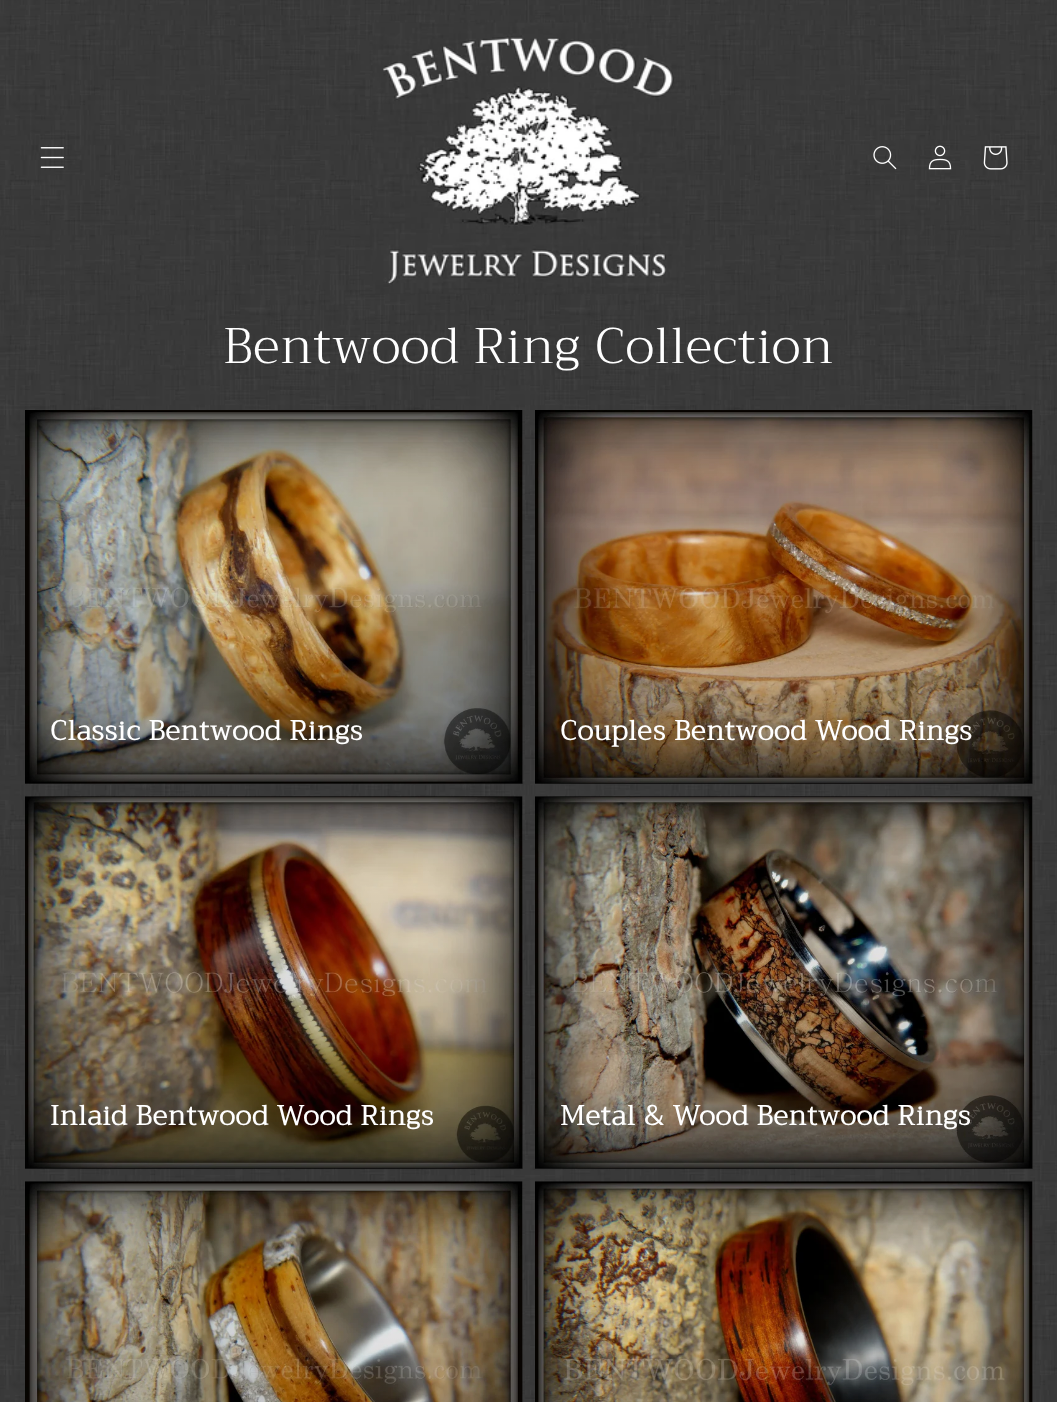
<!DOCTYPE html>
<meta charset="utf-8">
<style>body { margin: 0 } canvas { display: block }</style>
<canvas id="canvas" width="1057" height="1402"></canvas>
<img id="img1" src="images/1.png" hidden>
<img id="img2" src="images/2.png" hidden>
<img id="img3" src="images/3.png" hidden>
<img id="img4" src="images/4.png" hidden>
<img id="img5" src="images/5.png" hidden>
<img id="img6" src="images/6.png" hidden>
<img id="img7" src="images/7.png" hidden>
<img id="img8" src="images/8.png" hidden>
<img id="img9" src="images/9.png" hidden>
<img id="img10" src="images/10.png" hidden>
<img id="img11" src="images/11.png" hidden>
<img id="img12" src="images/12.png" hidden>
<script>
window.onload = function () {
    const canvas = document.getElementById('canvas');
    const context = canvas.getContext('2d');
    context.miterLimit = 4;
    context.fontKerning = 'normal';
    let gradient;

    context.fillStyle = 'rgb(255, 255, 255)';
    context.fillRect(0, 0, 1057, 1402);
    context.drawImage(document.getElementById('img1'), 0, 0, 1057, 1402);
    context.drawImage(document.getElementById('img2'), 40, 147, 24, 21);
    context.drawImage(document.getElementById('img3'), 372, 22, 313, 272);
    context.drawImage(document.getElementById('img4'), 873, 146, 24, 24);
    context.drawImage(document.getElementById('img5'), 928, 145, 24, 25);
    context.drawImage(document.getElementById('img6'), 983, 146, 25, 24);
    context.drawImage(document.getElementById('img7'), 25, 410, 498, 374);
    gradient = context.createLinearGradient(274, 410, 274, 784);
    gradient.addColorStop(0, 'rgba(0, 0, 0, 0)');
    gradient.addColorStop(1, 'rgba(0, 0, 0, 0.25)');
    context.fillStyle = gradient;
    context.fillRect(25, 442, 498, 342);
    context.drawImage(document.getElementById('img8'), 535, 410, 498, 374);
    gradient = context.createLinearGradient(784, 410, 784, 784);
    gradient.addColorStop(0, 'rgba(0, 0, 0, 0)');
    gradient.addColorStop(1, 'rgba(0, 0, 0, 0.25)');
    context.fillStyle = gradient;
    context.fillRect(535, 442, 498, 342);
    context.drawImage(document.getElementById('img9'), 25, 796, 498, 373);
    gradient = context.createLinearGradient(274, 796, 274, 1169);
    gradient.addColorStop(0, 'rgba(0, 0, 0, 0)');
    gradient.addColorStop(1, 'rgba(0, 0, 0, 0.25)');
    context.fillStyle = gradient;
    context.fillRect(25, 828, 498, 341);
    context.drawImage(document.getElementById('img10'), 535, 796, 498, 373);
    gradient = context.createLinearGradient(784, 796, 784, 1169);
    gradient.addColorStop(0, 'rgba(0, 0, 0, 0)');
    gradient.addColorStop(1, 'rgba(0, 0, 0, 0.25)');
    context.fillStyle = gradient;
    context.fillRect(535, 828, 498, 341);
    context.drawImage(document.getElementById('img11'), 25, 1181, 498, 221);
    gradient = context.createLinearGradient(274, 1181, 274, 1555);
    gradient.addColorStop(0, 'rgba(0, 0, 0, 0)');
    gradient.addColorStop(1, 'rgba(0, 0, 0, 0.25)');
    context.fillStyle = gradient;
    context.fillRect(29, 1213, 494, 189);
    context.drawImage(document.getElementById('img12'), 535, 1181, 498, 221);
    gradient = context.createLinearGradient(784, 1181, 784, 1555);
    gradient.addColorStop(0, 'rgba(0, 0, 0, 0)');
    gradient.addColorStop(1, 'rgba(0, 0, 0, 0.25)');
    context.fillStyle = gradient;
    context.fillRect(538, 1213, 495, 189);
    context.letterSpacing = '0.8px';
    context.font = '300 50px Trirong';
    context.fillStyle = 'rgb(255, 255, 255)';
    context.fillText('Bentwood Ring Collection', 223, 363);
    context.font = 'bold 27.5px Trirong';
    context.fillText('Classic Bentwood Rings', 50, 740);
    context.fillText('Couples Bentwood Wood Rings', 560, 740);
    context.fillText('Inlaid Bentwood Wood Rings', 50, 1125);
    context.fillText('Metal & Wood Bentwood Rings', 560, 1125);
};
</script>
